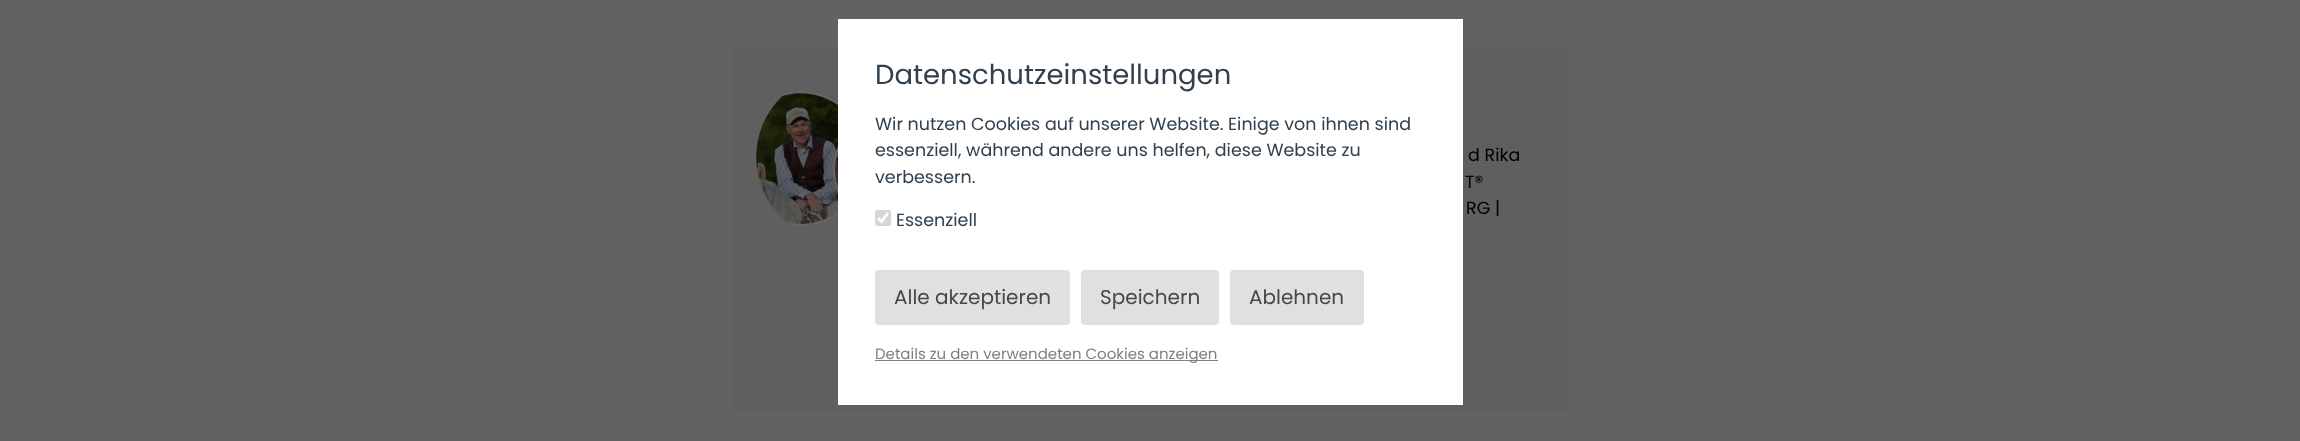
<!DOCTYPE html>
<meta charset="utf-8">
<style>body { margin: 0 } canvas { display: block }</style>
<canvas id="canvas" width="2300" height="441"></canvas>
<img id="img1" src="images/1.png" hidden>
<script>
window.onload = function () {
    const canvas = document.getElementById('canvas');
    const context = canvas.getContext('2d');
    context.miterLimit = 4;
    context.fontKerning = 'normal';

    context.fillStyle = 'rgb(100, 97, 98)';
    context.fillRect(0, 0, 2300, 441);
    context.fillStyle = 'rgb(96, 94, 94)';
    context.fillRect(731, 48, 838, 363);
    context.fillStyle = 'rgb(255, 255, 255)';
    context.fillRect(838, 19, 625, 386);
    context.fillStyle = 'rgb(214, 214, 214)';
    context.beginPath();
    context.roundRect(875, 210, 16, 16, 2.5);
    context.fill();
    context.beginPath();
    context.moveTo(878, 218);
    context.lineTo(881.5, 221.5);
    context.lineTo(888, 213);
    context.strokeStyle = 'rgb(255, 255, 255)';
    context.lineWidth = 2.6;
    context.stroke();
    context.fillStyle = 'rgb(224, 224, 224)';
    context.beginPath();
    context.roundRect(875, 270, 195, 55, 4);
    context.fill();
    context.beginPath();
    context.roundRect(1081, 270, 138, 55, 4);
    context.fill();
    context.beginPath();
    context.roundRect(1230, 270, 134, 55, 4);
    context.fill();
    context.fillStyle = 'rgb(128, 128, 128)';
    context.fillRect(875, 360, 343, 1);
    context.drawImage(document.getElementById('img1'), 756, 91, 82, 135);
    context.font = '27.5px Poppins';
    context.fillStyle = 'rgb(49, 64, 78)';
    context.fillText('Datenschutzeinstellungen', 875, 84);
    context.font = '17.5px Poppins';
    context.fillText('Wir nutzen Cookies auf unserer Website. Einige von ihnen sind', 875, 130);
    context.fillText('essenziell, während andere uns helfen, diese Website zu', 875, 156);
    context.fillText('verbessern.', 875, 183);
    context.fillText('Essenziell', 896, 226);
    context.font = '20px Poppins';
    context.fillStyle = 'rgb(71, 71, 71)';
    context.fillText('Alle akzeptieren', 894, 304);
    context.fillText('Speichern', 1100, 304);
    context.fillText('Ablehnen', 1249, 304);
    context.font = '15px Poppins';
    context.fillStyle = 'rgb(128, 128, 128)';
    context.fillText('Details zu den verwendeten Cookies anzeigen', 875, 359);
    context.font = '17.5px Poppins';
    context.fillStyle = 'rgb(0, 0, 0)';
    context.fillText('d Rika', 1468, 161);
    context.fillText('T®', 1465, 188);
    context.fillText('RG |', 1466, 214);
};
</script>
